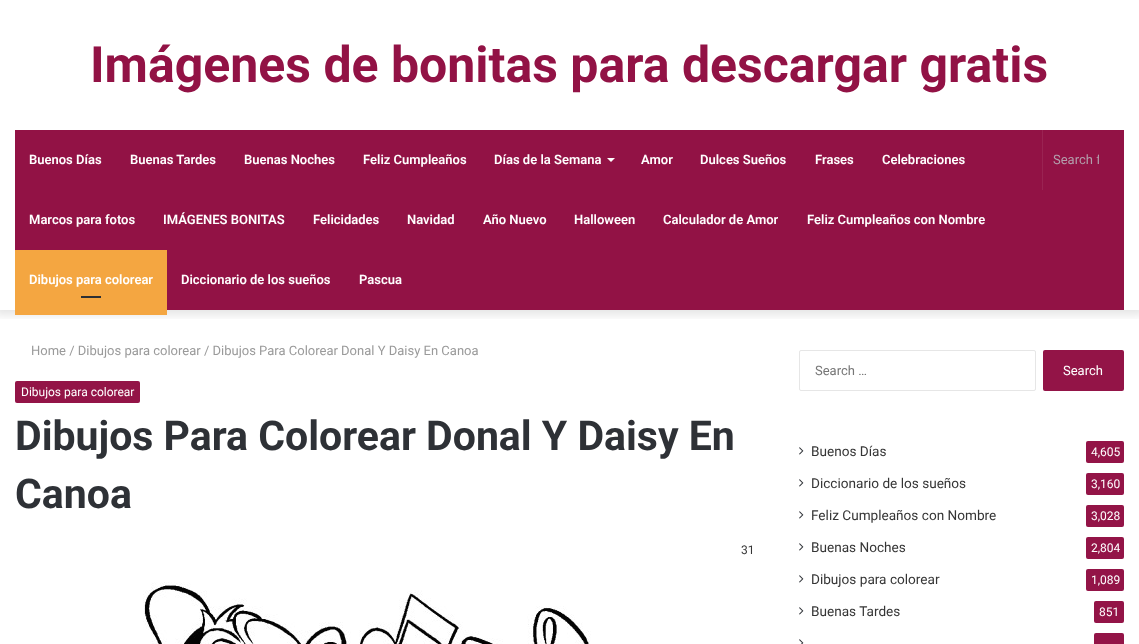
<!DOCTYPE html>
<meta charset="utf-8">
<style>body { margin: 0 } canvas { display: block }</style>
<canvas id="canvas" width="1139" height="644"></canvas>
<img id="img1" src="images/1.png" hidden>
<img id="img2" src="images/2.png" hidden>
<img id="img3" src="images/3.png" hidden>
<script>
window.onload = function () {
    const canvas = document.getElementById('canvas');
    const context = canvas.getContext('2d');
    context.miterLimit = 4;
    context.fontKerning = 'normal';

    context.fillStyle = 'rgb(255, 255, 255)';
    context.fillRect(0, 0, 1139, 644);
    context.save();
    context.beginPath();
    context.rect(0, 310, 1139, 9);
    context.clip();
    context.fillStyle = 'rgba(0, 0, 0, 0.1)';
    context.filter = 'blur(5px)';
    context.beginPath();
    context.rect(-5, -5, 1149, 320);
    context.fill();
    context.filter = 'none';
    context.restore();
    context.fillStyle = 'rgb(146, 18, 69)';
    context.fillRect(15, 130, 1109, 180);
    context.fillStyle = 'rgb(255, 255, 255)';
    context.beginPath();
    context.moveTo(607, 158);
    context.lineTo(615, 158);
    context.lineTo(611, 162);
    context.closePath();
    context.fill();
    context.fillStyle = 'rgb(244, 166, 65)';
    context.fillRect(15, 250, 152, 65);
    context.fillStyle = 'rgb(44, 47, 52)';
    context.fillRect(81, 296, 20, 2);
    context.fillStyle = 'rgb(154, 35, 82)';
    context.fillRect(1042, 130, 1, 60);
    context.fillStyle = 'rgb(147, 20, 71)';
    context.beginPath();
    context.roundRect(15, 381, 125, 22, 2);
    context.fill();
    context.drawImage(document.getElementById('img1'), 143, 582, 448, 62);
    context.beginPath();
    context.roundRect(799.5, 350.5, 236, 40, 1.5);
    context.strokeStyle = 'rgb(230, 230, 230)';
    context.stroke();
    context.beginPath();
    context.roundRect(1043, 350, 81, 41, 2);
    context.fill();
    context.drawImage(document.getElementById('img2'), 799, 447, 5, 8);
    context.beginPath();
    context.roundRect(1086, 441, 38, 22, 2);
    context.fill();
    context.drawImage(document.getElementById('img2'), 799, 479, 5, 8);
    context.beginPath();
    context.roundRect(1086, 473, 38, 22, 2);
    context.fill();
    context.drawImage(document.getElementById('img2'), 799, 511, 5, 8);
    context.beginPath();
    context.roundRect(1086, 505, 38, 22, 2);
    context.fill();
    context.drawImage(document.getElementById('img2'), 799, 543, 5, 8);
    context.beginPath();
    context.roundRect(1086, 537, 38, 22, 2);
    context.fill();
    context.drawImage(document.getElementById('img2'), 799, 575, 5, 8);
    context.beginPath();
    context.roundRect(1086, 569, 38, 22, 2);
    context.fill();
    context.drawImage(document.getElementById('img2'), 799, 607, 5, 8);
    context.beginPath();
    context.roundRect(1094, 601, 30, 22, 2);
    context.fill();
    context.drawImage(document.getElementById('img3'), 799, 639, 5, 5);
    context.beginPath();
    context.roundRect(1094, 633, 30, 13, 2);
    context.fill();
    context.font = 'bold 50px Roboto';
    context.fillStyle = 'rgb(146, 18, 69)';
    context.fillText('Imágenes de bonitas para descargar gratis', 90, 82);
    context.font = '600 13px Roboto';
    context.fillStyle = 'rgb(255, 255, 255)';
    context.fillText('Buenos Días', 29, 164);
    context.fillText('Buenas Tardes', 130, 164);
    context.fillText('Buenas Noches', 244, 164);
    context.fillText('Feliz Cumpleaños', 363, 164);
    context.fillText('Días de la Semana', 494, 164);
    context.fillText('Amor', 641, 164);
    context.fillText('Dulces Sueños', 700, 164);
    context.fillText('Frases', 815, 164);
    context.fillText('Celebraciones', 882, 164);
    context.fillText('Marcos para fotos', 29, 224);
    context.fillText('IMÁGENES BONITAS', 163, 224);
    context.fillText('Felicidades', 313, 224);
    context.fillText('Navidad', 407, 224);
    context.fillText('Año Nuevo', 483, 224);
    context.fillText('Halloween', 574, 224);
    context.fillText('Calculador de Amor', 663, 224);
    context.fillText('Feliz Cumpleaños con Nombre', 807, 224);
    context.fillText('Dibujos para colorear', 29, 284);
    context.fillText('Diccionario de los sueños', 181, 284);
    context.fillText('Pascua', 359, 284);
    context.save();
    context.beginPath();
    context.rect(1053, 152, 46, 15);
    context.clip();
    context.font = '13px Roboto';
    context.fillStyle = 'rgb(179, 159, 172)';
    context.fillText('Search f', 1053, 164);
    context.restore();
    context.font = '13px Roboto';
    context.fillStyle = 'rgb(154, 154, 154)';
    context.fillText('Home / Dibujos para colorear / Dibujos Para Colorear Donal Y Daisy En Canoa', 31, 355);
    context.font = '12px Roboto';
    context.fillStyle = 'rgb(255, 255, 255)';
    context.fillText('Dibujos para colorear', 21, 396);
    context.font = 'bold 41px Roboto';
    context.fillStyle = 'rgb(46, 49, 54)';
    context.fillText('Dibujos Para Colorear Donal Y Daisy En', 15, 450);
    context.fillText('Canoa', 15, 508);
    context.font = '12px Roboto';
    context.fillStyle = 'rgb(53, 53, 53)';
    context.fillText('31', 741, 554);
    context.font = '13px Roboto';
    context.fillStyle = 'rgb(118, 118, 118)';
    context.fillText('Search …', 815, 375);
    context.fillStyle = 'rgb(255, 255, 255)';
    context.fillText('Search', 1063, 375);
    context.font = '13.6px Roboto';
    context.fillStyle = 'rgb(53, 53, 53)';
    context.fillText('Buenos Días', 811, 456);
    context.font = '12px Roboto';
    context.fillStyle = 'rgb(255, 255, 255)';
    context.fillText('4,605', 1091, 456);
    context.font = '13.6px Roboto';
    context.fillStyle = 'rgb(53, 53, 53)';
    context.fillText('Diccionario de los sueños', 811, 488);
    context.font = '12px Roboto';
    context.fillStyle = 'rgb(255, 255, 255)';
    context.fillText('3,160', 1091, 488);
    context.font = '13.6px Roboto';
    context.fillStyle = 'rgb(53, 53, 53)';
    context.fillText('Feliz Cumpleaños con Nombre', 811, 520);
    context.font = '12px Roboto';
    context.fillStyle = 'rgb(255, 255, 255)';
    context.fillText('3,028', 1091, 520);
    context.font = '13.6px Roboto';
    context.fillStyle = 'rgb(53, 53, 53)';
    context.fillText('Buenas Noches', 811, 552);
    context.font = '12px Roboto';
    context.fillStyle = 'rgb(255, 255, 255)';
    context.fillText('2,804', 1091, 552);
    context.font = '13.6px Roboto';
    context.fillStyle = 'rgb(53, 53, 53)';
    context.fillText('Dibujos para colorear', 811, 584);
    context.font = '12px Roboto';
    context.fillStyle = 'rgb(255, 255, 255)';
    context.fillText('1,089', 1091, 584);
    context.font = '13.6px Roboto';
    context.fillStyle = 'rgb(53, 53, 53)';
    context.fillText('Buenas Tardes', 811, 616);
    context.font = '12px Roboto';
    context.fillStyle = 'rgb(255, 255, 255)';
    context.fillText('851', 1099, 616);
};
</script>
